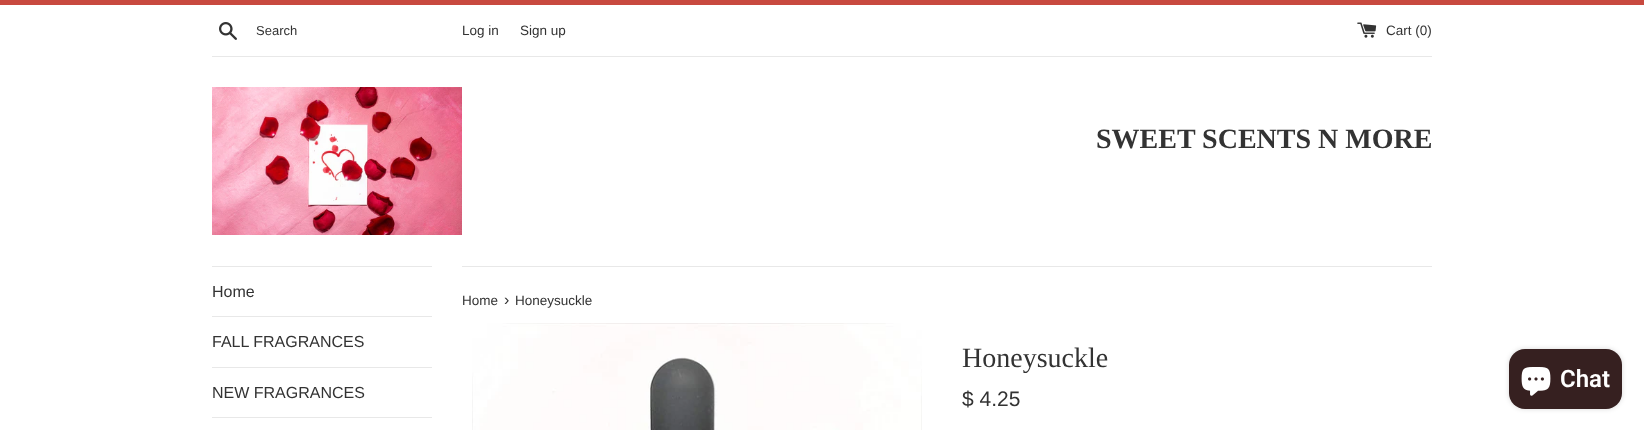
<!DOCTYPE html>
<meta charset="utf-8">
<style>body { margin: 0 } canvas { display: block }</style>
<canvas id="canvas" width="1644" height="430"></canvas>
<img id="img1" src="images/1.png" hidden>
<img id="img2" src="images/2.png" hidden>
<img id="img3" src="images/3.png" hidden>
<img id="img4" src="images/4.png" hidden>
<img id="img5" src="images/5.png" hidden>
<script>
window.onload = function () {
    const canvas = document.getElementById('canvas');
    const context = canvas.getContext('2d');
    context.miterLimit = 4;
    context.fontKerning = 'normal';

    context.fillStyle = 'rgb(255, 255, 255)';
    context.fillRect(0, 0, 1644, 430);
    context.fillStyle = 'rgb(200, 73, 63)';
    context.fillRect(0, 0, 1644, 5);
    context.drawImage(document.getElementById('img1'), 219, 22, 18, 18);
    context.drawImage(document.getElementById('img2'), 1357, 22, 20, 16);
    context.fillStyle = 'rgb(232, 232, 232)';
    context.fillRect(212, 56, 1220, 1);
    context.drawImage(document.getElementById('img3'), 212, 87, 250, 148);
    context.fillRect(212, 266, 220, 1);
    context.fillRect(212, 316, 220, 1);
    context.fillRect(212, 367, 220, 1);
    context.fillRect(212, 417, 220, 1);
    context.fillRect(462, 266, 970, 1);
    context.drawImage(document.getElementById('img4'), 472, 323, 450, 107);
    context.fillStyle = 'rgba(0, 0, 0, 0.15)';
    context.filter = 'blur(2.5px)';
    context.beginPath();
    context.roundRect(1509, 349, 113, 60, 16);
    context.fill();
    context.filter = 'none';
    context.fillStyle = 'rgb(54, 32, 32)';
    context.beginPath();
    context.roundRect(1509, 349, 113, 60, 16);
    context.fill();
    context.drawImage(document.getElementById('img5'), 1521, 367, 30, 29);
    context.font = '13px Liberation Sans';
    context.fillStyle = 'rgb(51, 51, 51)';
    context.fillText('Search', 256, 35);
    context.font = '13.5px Liberation Sans';
    context.fillText('Log in', 462, 35);
    context.fillText('Sign up', 520, 35);
    context.fillText('Cart (0)', 1386, 35);
    context.font = 'bold 28px Liberation Serif';
    context.fillText('SWEET SCENTS N MORE', 1096, 148);
    context.font = '16px Liberation Sans';
    context.fillText('Home', 212, 297);
    context.fillText('FALL FRAGRANCES', 212, 347);
    context.fillText('NEW FRAGRANCES', 212, 398);
    context.font = '13.5px Liberation Sans';
    context.fillText('Home', 462, 305);
    context.font = '16px Liberation Sans';
    context.fillText('›', 504, 305);
    context.font = '13.5px Liberation Sans';
    context.fillText('Honeysuckle', 515, 305);
    context.font = '28px Liberation Serif';
    context.fillText('Honeysuckle', 962, 367);
    context.font = '21px Liberation Sans';
    context.fillText('$ 4.25', 962, 406);
    context.font = '600 24px Roboto';
    context.fillStyle = 'rgb(255, 255, 255)';
    context.fillText('Chat', 1560, 387);
};
</script>
